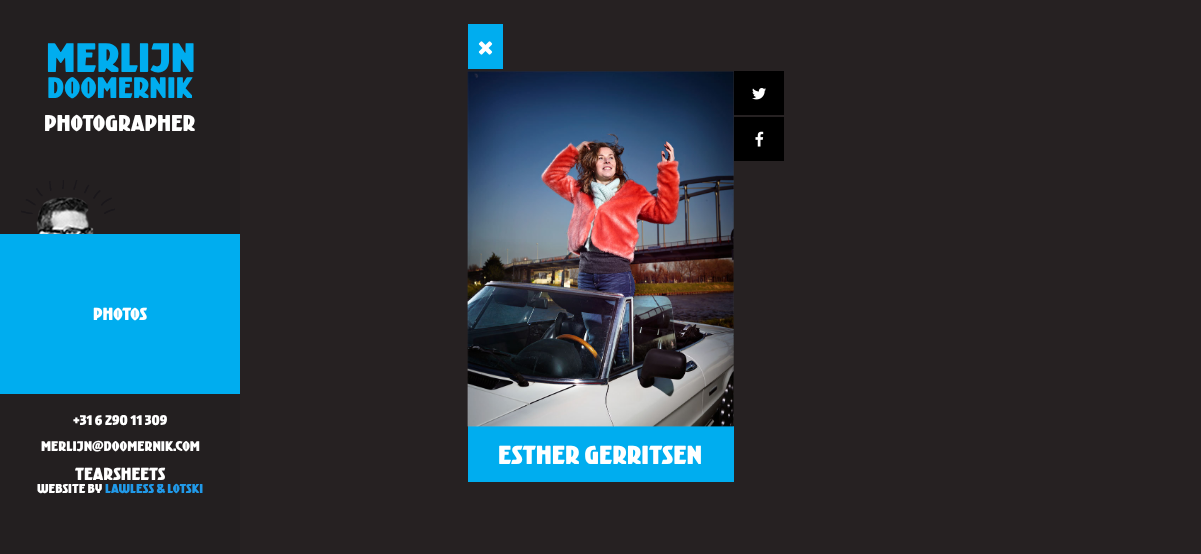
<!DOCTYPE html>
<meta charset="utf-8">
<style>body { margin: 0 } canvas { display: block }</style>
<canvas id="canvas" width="1201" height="554"></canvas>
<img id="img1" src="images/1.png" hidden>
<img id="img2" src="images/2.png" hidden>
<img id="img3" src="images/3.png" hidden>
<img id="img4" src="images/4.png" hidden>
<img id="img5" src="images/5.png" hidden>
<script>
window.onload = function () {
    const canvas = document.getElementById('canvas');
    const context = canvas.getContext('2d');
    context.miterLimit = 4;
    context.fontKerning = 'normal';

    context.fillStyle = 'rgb(38, 33, 34)';
    context.fillRect(0, 0, 1201, 554);
    context.fillStyle = 'rgb(35, 31, 32)';
    context.fillRect(0, 0, 240, 554);
    context.drawImage(document.getElementById('img1'), 21, 180, 94, 54);
    context.fillStyle = 'rgb(0, 173, 239)';
    context.fillRect(0, 234, 240, 160);
    context.fillRect(468, 24, 35, 45);
    context.drawImage(document.getElementById('img2'), 478, 41, 15, 14);
    context.fillRect(468, 426, 266, 56);
    context.drawImage(document.getElementById('img3'), 467, 71, 267, 356);
    context.fillStyle = 'rgb(0, 0, 0)';
    context.fillRect(734, 71, 50, 44);
    context.drawImage(document.getElementById('img4'), 752, 88, 14, 12);
    context.fillRect(734, 117, 50, 44);
    context.drawImage(document.getElementById('img5'), 755, 131, 9, 16);
    context.font = 'bold 38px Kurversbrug';
    context.fillStyle = 'rgb(0, 173, 239)';
    context.fillText('merlijn', 46, 72);
    context.font = 'bold 27.25px Kurversbrug';
    context.fillText('doomernik', 47, 98);
    context.font = 'bold 21px Kurversbrug';
    context.fillStyle = 'rgb(255, 255, 255)';
    context.fillText('photographer', 44, 131);
    context.font = 'bold 16px Kurversbrug';
    context.fillText('photos', 93, 320);
    context.fillText('tearsheets', 75, 480);
    context.font = 'bold 13px Kurversbrug';
    context.fillText('+31 6 290 11 309', 73, 425);
    context.fillText('merlijn@doomernik.com', 41, 451);
    context.font = 'bold 12px Kurversbrug';
    context.fillText('Website by', 37, 493);
    context.fillStyle = 'rgb(33, 153, 232)';
    context.fillText('Lawless & Lotski', 105, 493);
    context.font = 'bold 24px Kurversbrug';
    context.fillStyle = 'rgb(255, 255, 255)';
    context.fillText('esther Gerritsen', 498, 464);
};
</script>
